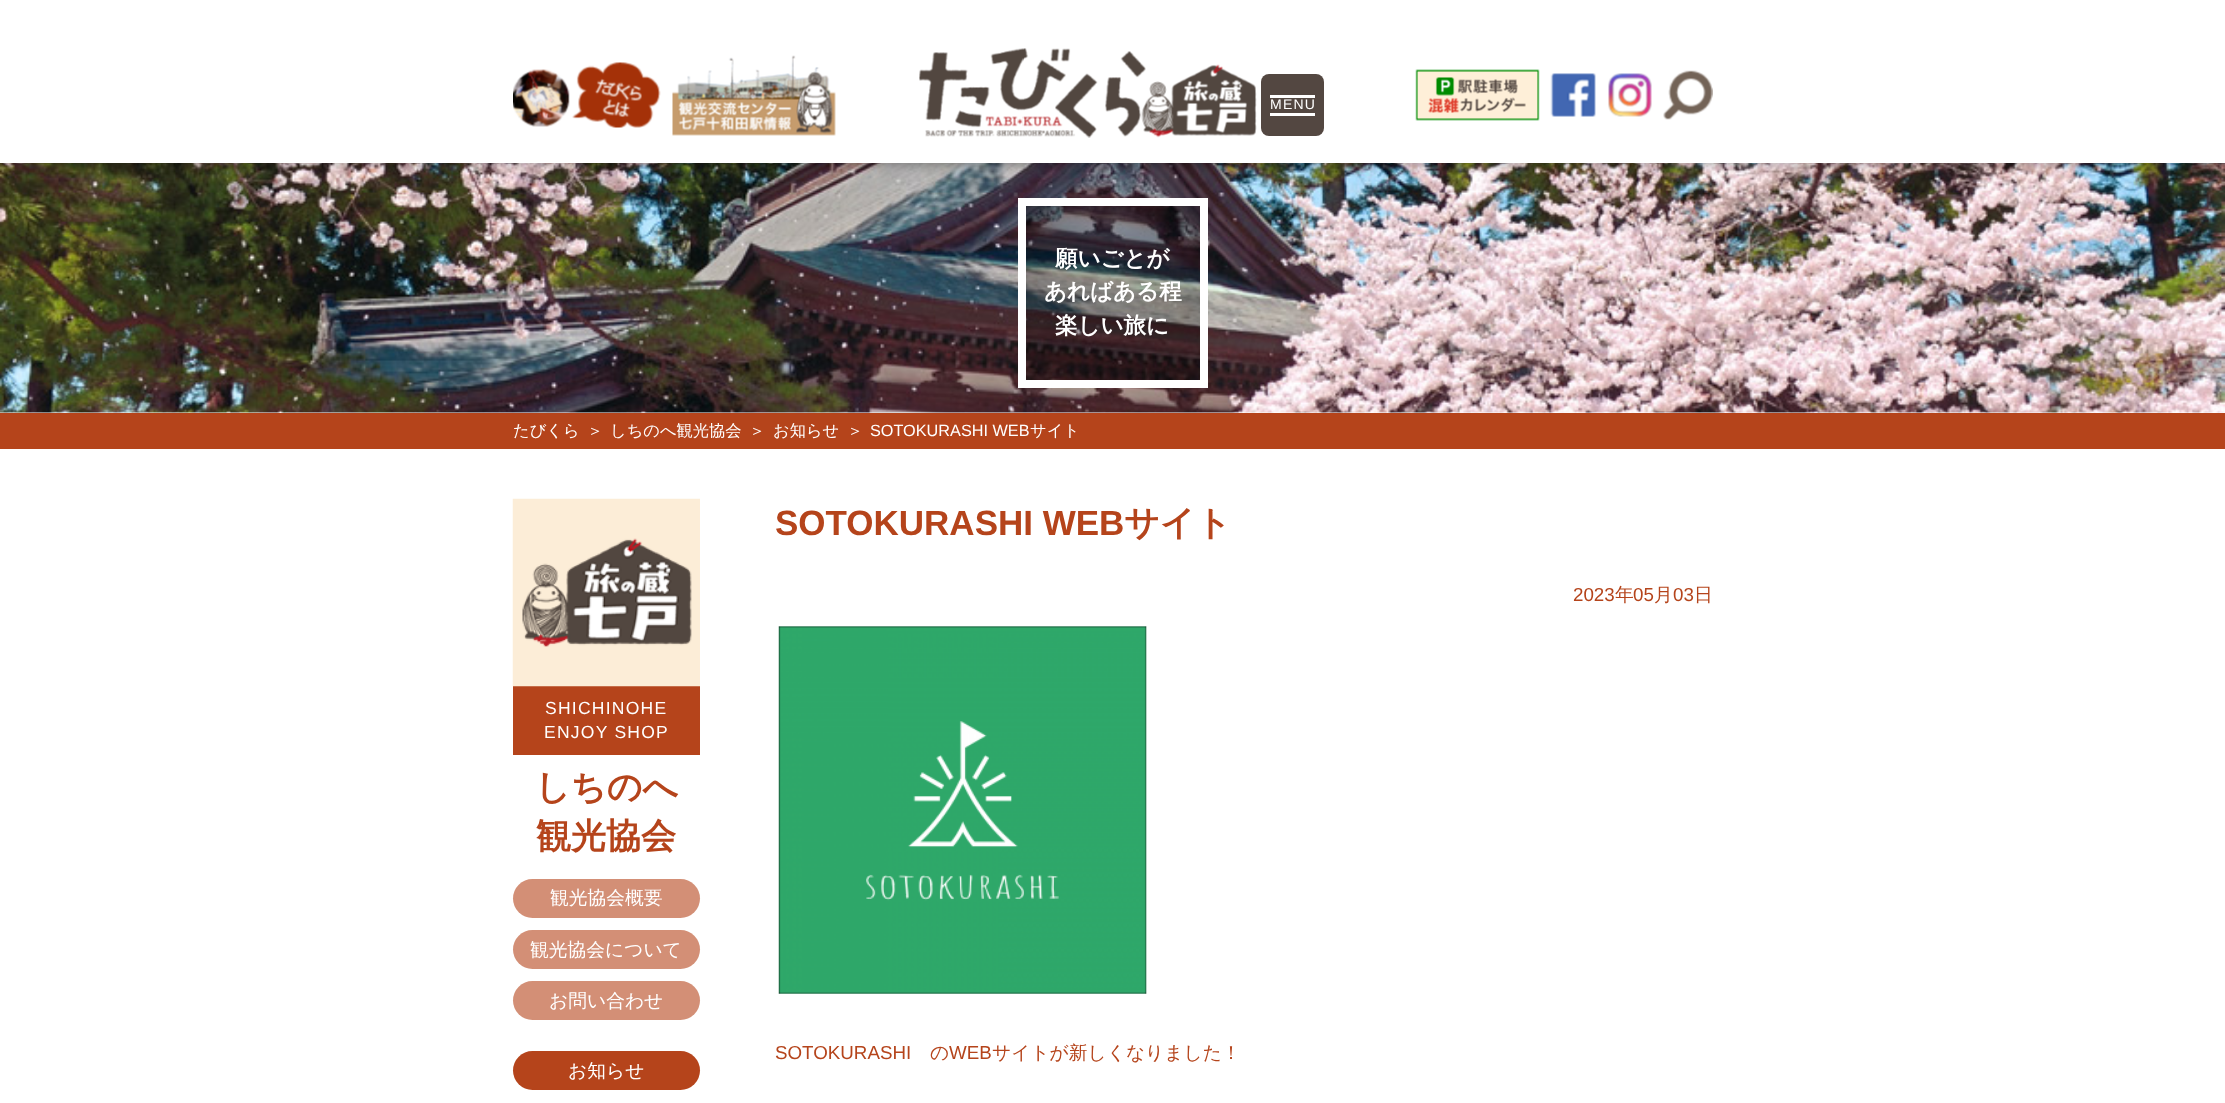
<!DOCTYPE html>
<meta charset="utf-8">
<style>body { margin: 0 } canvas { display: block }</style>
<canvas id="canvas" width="2225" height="1103"></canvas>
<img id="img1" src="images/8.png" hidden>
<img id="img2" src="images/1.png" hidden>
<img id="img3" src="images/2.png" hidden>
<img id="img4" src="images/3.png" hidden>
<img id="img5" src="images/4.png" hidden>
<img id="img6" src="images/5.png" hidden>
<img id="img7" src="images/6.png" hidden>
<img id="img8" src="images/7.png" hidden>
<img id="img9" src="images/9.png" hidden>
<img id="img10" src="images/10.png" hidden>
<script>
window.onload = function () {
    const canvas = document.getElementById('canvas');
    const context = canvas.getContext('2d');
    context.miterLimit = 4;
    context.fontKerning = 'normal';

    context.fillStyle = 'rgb(255, 255, 255)';
    context.fillRect(0, 0, 2225, 1103);
    context.drawImage(document.getElementById('img1'), 0, 163, 2225, 250);
    context.fillStyle = 'rgba(0, 0, 0, 0.3)';
    context.filter = 'blur(5px)';
    context.beginPath();
    context.rect(0, 3, 2225, 162);
    context.fill();
    context.filter = 'none';
    context.fillStyle = 'rgb(255, 255, 255)';
    context.fillRect(0, 0, 2225, 163);
    context.drawImage(document.getElementById('img2'), 919, 48, 338, 90);
    context.drawImage(document.getElementById('img3'), 513, 62, 148, 66);
    context.drawImage(document.getElementById('img4'), 672, 55, 164, 81);
    context.drawImage(document.getElementById('img5'), 1415, 69, 125, 52);
    context.drawImage(document.getElementById('img6'), 1550, 73, 46, 44);
    context.drawImage(document.getElementById('img7'), 1608, 73, 44, 44);
    context.drawImage(document.getElementById('img8'), 1663, 70, 50, 50);
    context.fillStyle = 'rgb(83, 71, 65)';
    context.beginPath();
    context.roundRect(1261, 74, 63, 62, 8);
    context.fill();
    context.fillStyle = 'rgb(255, 255, 255)';
    context.fillRect(1270, 95, 45, 3);
    context.fillRect(1270, 113, 45, 3);
    context.fillStyle = 'rgba(0, 0, 0, 0.3)';
    context.beginPath();
    context.rect(1022, 202, 182, 182);
    context.fill();
    context.strokeStyle = 'rgb(255, 255, 255)';
    context.lineWidth = 8;
    context.stroke();
    context.fillStyle = 'rgb(181, 68, 27)';
    context.fillRect(0, 413, 2225, 36);
    context.fillRect(513, 686, 187, 69);
    context.drawImage(document.getElementById('img9'), 512, 498, 188, 189);
    context.fillStyle = 'rgb(211, 143, 118)';
    context.beginPath();
    context.roundRect(513, 879, 187, 39, 19.5);
    context.fill();
    context.beginPath();
    context.roundRect(513, 930, 187, 39, 19.5);
    context.fill();
    context.beginPath();
    context.roundRect(513, 981, 187, 39, 19.5);
    context.fill();
    context.fillStyle = 'rgb(181, 68, 27)';
    context.beginPath();
    context.roundRect(513, 1051, 187, 39, 19.5);
    context.fill();
    context.drawImage(document.getElementById('img10'), 778, 626, 369, 368);
    context.letterSpacing = '1.25px';
    context.font = '14px Liberation Sans';
    context.fillStyle = 'rgb(255, 255, 255)';
    context.fillText('MENU', 1270, 109);
    context.letterSpacing = '0px';
    context.font = 'bold 22.5px WenQuanYi Zen Hei';
    context.fillText('願いごとが', 1055, 266);
    context.fillText('あればある程', 1044, 299);
    context.fillText('楽しい旅に', 1055, 333);
    context.font = '500 16.25px WenQuanYi Zen Hei';
    context.fillText('たびくら', 513, 436);
    context.fillText('＞', 587, 436);
    context.save();
    context.beginPath();
    context.rect(513, 423, 1200, 16);
    context.clip();
    context.fillText('しちのへ観光協会', 610, 436);
    context.restore();
    context.fillText('＞', 749, 436);
    context.fillText('お知らせ', 773, 436);
    context.fillText('＞', 847, 436);
    context.font = '16.25px Liberation Sans';
    context.fillText('SOTOKURASHI WEB', 870, 436);
    context.font = '500 16.25px WenQuanYi Zen Hei';
    context.fillText('サイト', 1030, 436);
    context.letterSpacing = '1.25px';
    context.font = '17.5px Liberation Sans';
    context.fillText('SHICHINOHE', 545, 714);
    context.fillText('ENJOY SHOP', 544, 738);
    context.letterSpacing = '0px';
    context.font = 'bold 35px WenQuanYi Zen Hei';
    context.fillStyle = 'rgb(181, 68, 27)';
    context.fillText('しちのへ', 535, 799);
    context.fillText('観光協会', 536, 848);
    context.font = '500 18.75px WenQuanYi Zen Hei';
    context.fillStyle = 'rgb(255, 255, 255)';
    context.fillText('観光協会概要', 550, 904);
    context.fillText('観光協会について', 530, 956);
    context.fillText('お問い合わせ', 549, 1007);
    context.fillText('お知らせ', 568, 1077);
    context.font = 'bold 35px Liberation Sans';
    context.fillStyle = 'rgb(181, 68, 27)';
    context.fillText('SOTOKURASHI WEB', 775, 535);
    context.font = 'bold 35px WenQuanYi Zen Hei';
    context.fillText('サイト', 1124, 535);
    context.font = '18.75px Liberation Sans';
    context.fillText('2023', 1573, 601);
    context.font = '500 18.75px WenQuanYi Zen Hei';
    context.fillText('年', 1615, 601);
    context.font = '18.75px Liberation Sans';
    context.fillText('05', 1633, 601);
    context.font = '500 18.75px WenQuanYi Zen Hei';
    context.fillText('月', 1654, 601);
    context.font = '18.75px Liberation Sans';
    context.fillText('03', 1673, 601);
    context.font = '500 18.75px WenQuanYi Zen Hei';
    context.fillText('日', 1694, 601);
    context.font = '18.75px Liberation Sans';
    context.fillText('SOTOKURASHI', 775, 1059);
    context.font = '500 18.75px WenQuanYi Zen Hei';
    context.fillText('の', 930, 1059);
    context.font = '18.75px Liberation Sans';
    context.fillText('WEB', 949, 1059);
    context.font = '500 18.75px WenQuanYi Zen Hei';
    context.fillText('サイトが新しくなりました！', 992, 1059);
};
</script>
